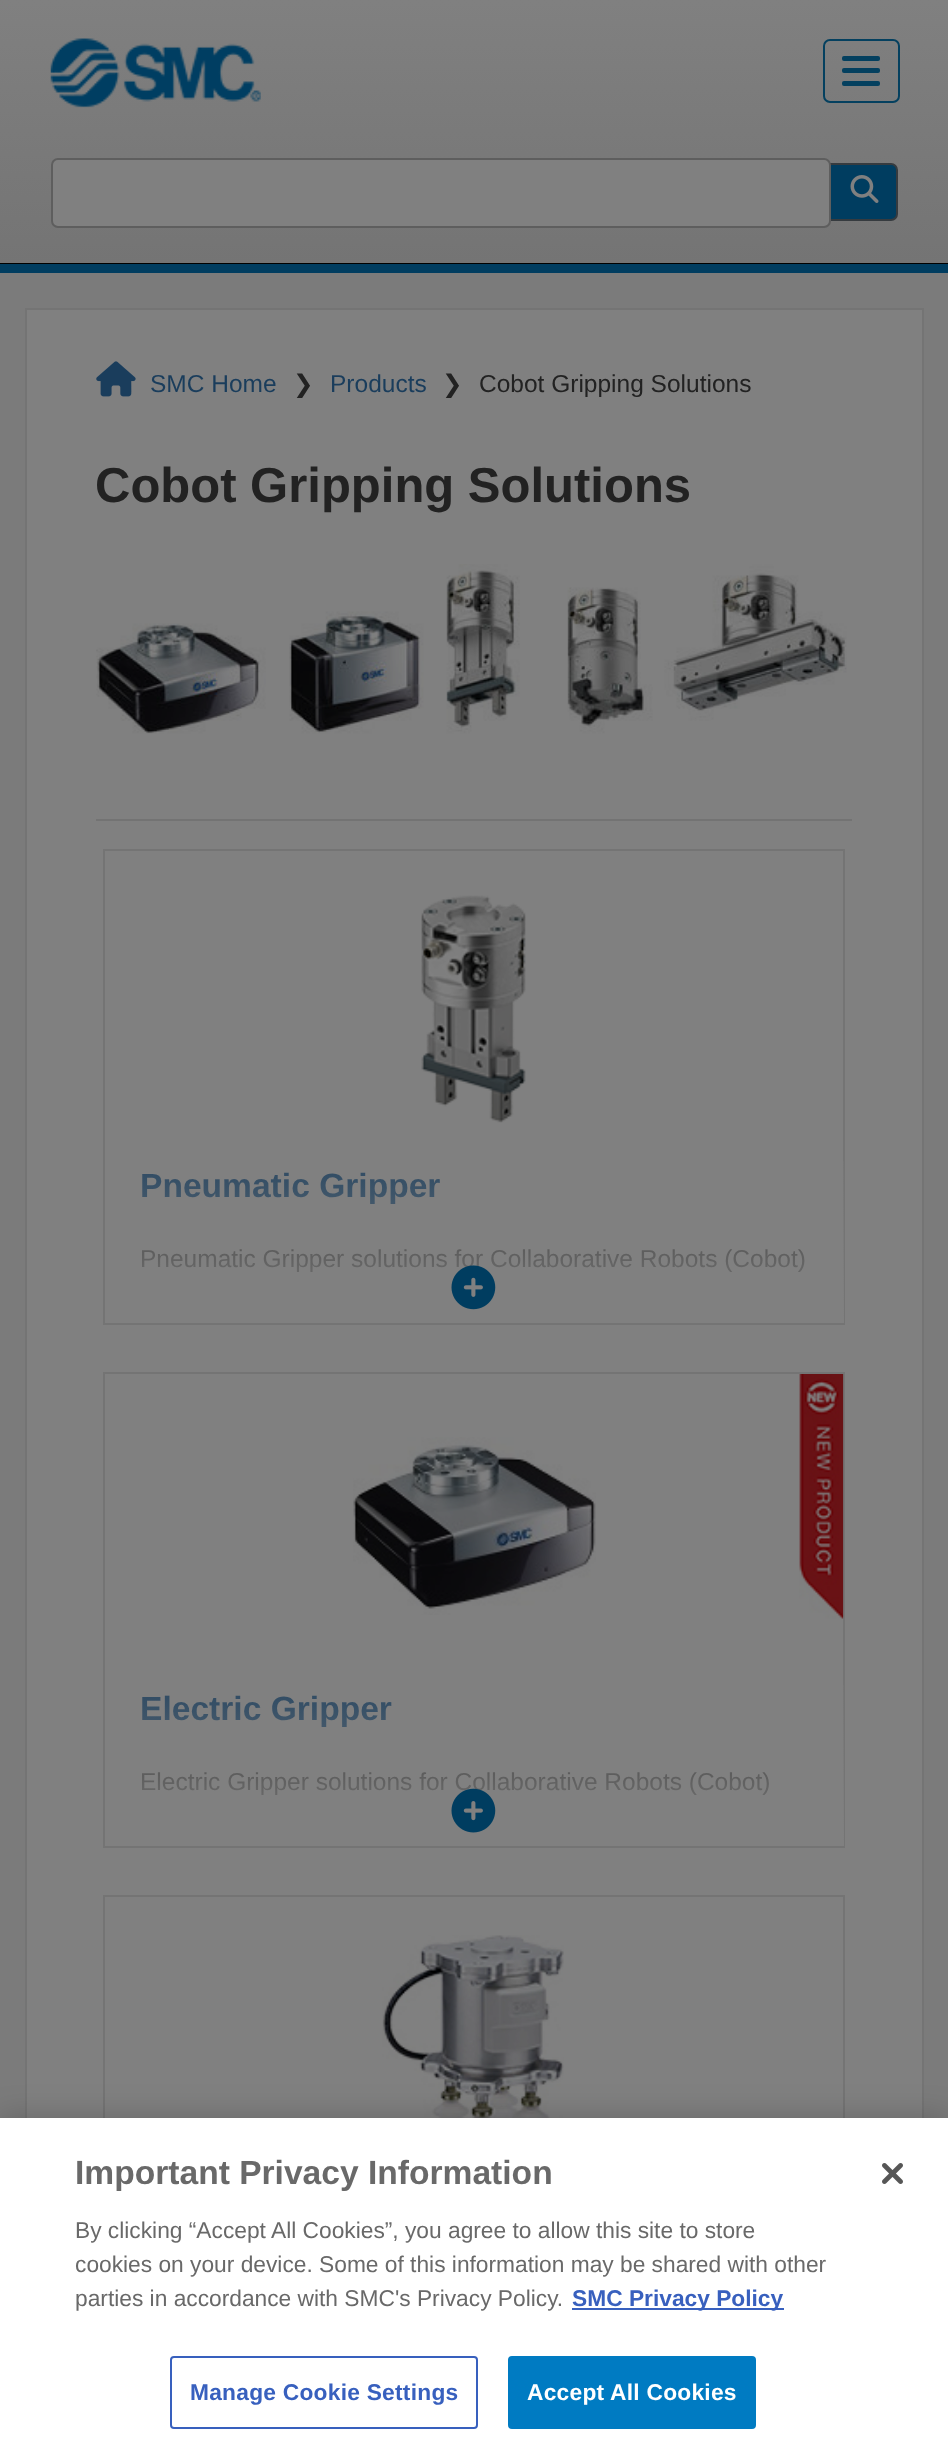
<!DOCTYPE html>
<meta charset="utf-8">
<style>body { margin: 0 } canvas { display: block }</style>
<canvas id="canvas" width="948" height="2457"></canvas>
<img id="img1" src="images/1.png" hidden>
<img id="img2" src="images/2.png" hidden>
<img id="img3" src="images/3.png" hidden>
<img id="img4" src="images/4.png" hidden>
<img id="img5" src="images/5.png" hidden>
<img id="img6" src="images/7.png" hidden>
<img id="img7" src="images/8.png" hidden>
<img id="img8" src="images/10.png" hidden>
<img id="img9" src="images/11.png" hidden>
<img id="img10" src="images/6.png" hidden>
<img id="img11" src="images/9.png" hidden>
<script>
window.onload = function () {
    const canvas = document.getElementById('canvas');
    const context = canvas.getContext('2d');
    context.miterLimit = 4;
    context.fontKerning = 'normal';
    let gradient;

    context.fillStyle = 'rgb(255, 255, 255)';
    context.fillRect(0, 0, 948, 2457);
    gradient = context.createLinearGradient(474, 0, 474, 263);
    gradient.addColorStop(0, 'rgb(128, 128, 128)');
    gradient.addColorStop(1, 'rgb(116, 116, 116)');
    context.fillStyle = gradient;
    context.fillRect(0, 0, 948, 263);
    context.fillStyle = 'rgb(0, 0, 0)';
    context.fillRect(0, 263, 948, 1);
    context.drawImage(document.getElementById('img1'), 50, 38, 211, 70);
    context.beginPath();
    context.roundRect(824, 40, 75, 62, 6);
    context.strokeStyle = 'rgb(4, 64, 95)';
    context.lineWidth = 2;
    context.stroke();
    context.fillStyle = 'rgb(4, 64, 95)';
    context.beginPath();
    context.roundRect(842, 56, 38, 5, 2);
    context.fill();
    context.beginPath();
    context.roundRect(842, 68, 38, 5, 2);
    context.fill();
    context.beginPath();
    context.roundRect(842, 81, 38, 5, 2);
    context.fill();
    context.fillStyle = 'rgb(0, 61, 96)';
    context.beginPath();
    context.roundRect(829, 164, 68, 56, [0, 6, 6, 0]);
    context.fill();
    context.strokeStyle = 'rgb(54, 59, 63)';
    context.stroke();
    context.fillStyle = 'rgb(128, 128, 128)';
    context.beginPath();
    context.roundRect(52, 159, 778, 68, 6);
    context.fill();
    context.strokeStyle = 'rgb(94, 94, 94)';
    context.stroke();
    context.drawImage(document.getElementById('img2'), 850, 175, 29, 28);
    context.fillStyle = 'rgb(123, 123, 123)';
    context.fillRect(0, 273, 948, 1845);
    context.fillStyle = 'rgb(0, 61, 96)';
    context.fillRect(0, 264, 948, 9);
    context.fillStyle = 'rgb(128, 128, 128)';
    context.fillRect(27, 310, 895, 1808);
    context.strokeStyle = 'rgb(116, 116, 116)';
    context.strokeRect(26, 309, 897, 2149);
    context.drawImage(document.getElementById('img3'), 96, 361, 40, 36);
    context.drawImage(document.getElementById('img4'), 96, 564, 751, 170);
    context.fillStyle = 'rgb(115, 115, 115)';
    context.fillRect(96, 819, 756, 2);
    context.strokeRect(104, 850, 740, 474);
    context.drawImage(document.getElementById('img5'), 421, 895, 105, 228);
    context.strokeRect(104, 1373, 740, 474);
    context.drawImage(document.getElementById('img6'), 353, 1437, 243, 178);
    context.drawImage(document.getElementById('img7'), 799, 1374, 45, 245);
    context.strokeRect(104, 1896, 740, 474);
    context.drawImage(document.getElementById('img8'), 382, 1935, 182, 183);
    context.fillStyle = 'rgba(0, 0, 0, 0.2)';
    context.filter = 'blur(16px)';
    context.beginPath();
    context.rect(0, 2118, 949, 339);
    context.fill();
    context.filter = 'none';
    context.fillStyle = 'rgb(255, 255, 255)';
    context.fillRect(0, 2118, 948, 339);
    context.fillStyle = 'rgb(56, 96, 190)';
    context.fillRect(572, 2308, 212, 2);
    context.beginPath();
    context.roundRect(171, 2357, 306, 71, 3);
    context.strokeStyle = 'rgb(56, 96, 190)';
    context.stroke();
    context.fillStyle = 'rgb(0, 123, 194)';
    context.beginPath();
    context.roundRect(509, 2357, 246, 71, 3);
    context.fill();
    context.strokeStyle = 'rgb(0, 123, 194)';
    context.stroke();
    context.drawImage(document.getElementById('img9'), 882, 2163, 21, 21);
    context.font = '24.5px Liberation Sans';
    context.fillStyle = 'rgb(26, 61, 92)';
    context.fillText('SMC Home', 150, 392);
    context.font = '24.5px DejaVu Sans';
    context.fillStyle = 'rgb(34, 34, 34)';
    context.fillText('❯', 293, 392);
    context.font = '24.5px Liberation Sans';
    context.fillStyle = 'rgb(26, 61, 92)';
    context.fillText('Products', 330, 392);
    context.font = '24.5px DejaVu Sans';
    context.fillStyle = 'rgb(34, 34, 34)';
    context.fillText('❯', 442, 392);
    context.font = '24.5px Liberation Sans';
    context.fillText('Cobot Gripping Solutions', 479, 392);
    context.font = 'bold 49px Liberation Sans';
    context.fillText('Cobot Gripping Solutions', 95, 502);
    context.font = 'bold 33.6px Liberation Sans';
    context.fillStyle = 'rgb(26, 61, 92)';
    context.fillText('Pneumatic Gripper', 140, 1197);
    context.font = '24.5px Liberation Sans';
    context.fillStyle = 'rgb(34, 34, 34)';
    context.fillText('Pneumatic Gripper solutions for Collaborative Robots (Cobot)', 140, 1267);
    gradient = context.createLinearGradient(474, 1125, 474, 1323);
    gradient.addColorStop(0, 'rgba(128, 128, 128, 0)');
    gradient.addColorStop(1, 'rgb(128, 128, 128)');
    context.fillStyle = gradient;
    context.fillRect(141, 1161, 703, 162);
    context.drawImage(document.getElementById('img10'), 451, 1265, 45, 45);
    context.font = 'bold 33.6px Liberation Sans';
    context.fillStyle = 'rgb(26, 61, 92)';
    context.fillText('Electric Gripper', 140, 1720);
    context.font = '24.5px Liberation Sans';
    context.fillStyle = 'rgb(34, 34, 34)';
    context.fillText('Electric Gripper solutions for Collaborative Robots (Cobot)', 140, 1790);
    gradient = context.createLinearGradient(474, 1649, 474, 1846);
    gradient.addColorStop(0, 'rgba(128, 128, 128, 0)');
    gradient.addColorStop(1, 'rgb(128, 128, 128)');
    context.fillStyle = gradient;
    context.fillRect(141, 1685, 703, 161);
    context.drawImage(document.getElementById('img11'), 451, 1788, 45, 45);
    context.font = 'bold 33.6px Liberation Sans';
    context.fillStyle = 'rgb(105, 105, 105)';
    context.fillText('Important Privacy Information', 75, 2184);
    context.font = '22.75px Liberation Sans';
    context.fillText('By clicking “Accept All Cookies”, you agree to allow this site to store', 75, 2238);
    context.fillText('cookies on your device. Some of this information may be shared with other', 75, 2272);
    context.fillText('parties in accordance with SMC\'s Privacy Policy.', 75, 2306);
    context.font = 'bold 22.75px Liberation Sans';
    context.fillStyle = 'rgb(56, 96, 190)';
    context.fillText('SMC Privacy Policy', 572, 2306);
    context.letterSpacing = '0.25px';
    context.fillText('Manage Cookie Settings', 190, 2400);
    context.fillStyle = 'rgb(255, 255, 255)';
    context.fillText('Accept All Cookies', 527, 2400);
};
</script>
